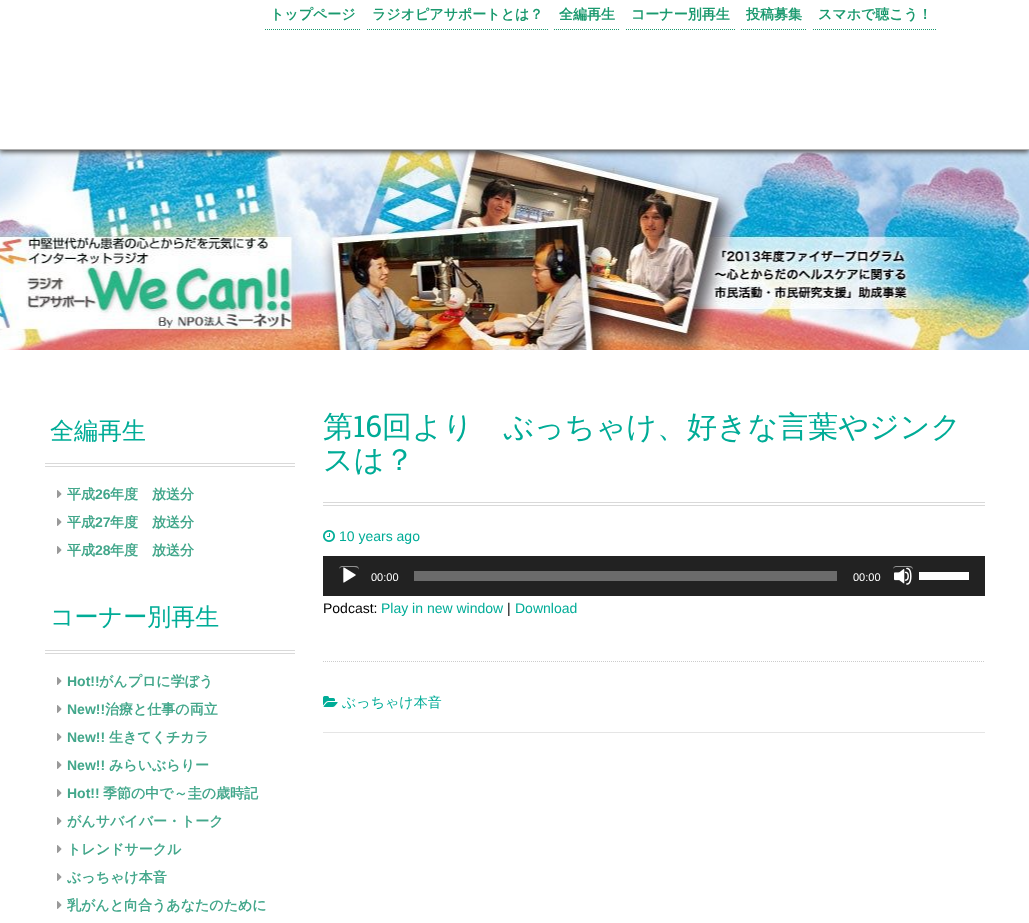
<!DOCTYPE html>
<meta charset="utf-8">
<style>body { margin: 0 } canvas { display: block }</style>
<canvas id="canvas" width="1029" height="923"></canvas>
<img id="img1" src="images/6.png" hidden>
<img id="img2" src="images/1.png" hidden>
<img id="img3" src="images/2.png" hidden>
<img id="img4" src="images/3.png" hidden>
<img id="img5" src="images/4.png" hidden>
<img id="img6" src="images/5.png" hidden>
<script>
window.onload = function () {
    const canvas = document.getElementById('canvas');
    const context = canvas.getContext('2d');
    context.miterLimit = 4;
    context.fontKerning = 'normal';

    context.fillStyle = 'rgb(255, 255, 255)';
    context.fillRect(0, 0, 1029, 923);
    context.drawImage(document.getElementById('img1'), 0, 150, 1029, 200);
    context.fillStyle = 'rgb(74, 74, 74)';
    context.filter = 'blur(2.5px)';
    context.beginPath();
    context.rect(0, 2, 1029, 150);
    context.fill();
    context.filter = 'none';
    context.fillStyle = 'rgb(255, 255, 255)';
    context.fillRect(0, 0, 1029, 149);
    context.fillStyle = 'rgb(178, 178, 178)';
    context.fillRect(0, 149, 1029, 1);
    context.beginPath();
    context.moveTo(265, 29.5);
    context.lineTo(361, 29.5);
    context.strokeStyle = 'rgb(26, 153, 110)';
    context.setLineDash([1, 1]);
    context.stroke();
    context.beginPath();
    context.moveTo(367, 29.5);
    context.lineTo(548, 29.5);
    context.stroke();
    context.beginPath();
    context.moveTo(554, 29.5);
    context.lineTo(620, 29.5);
    context.stroke();
    context.beginPath();
    context.moveTo(626, 29.5);
    context.lineTo(735, 29.5);
    context.stroke();
    context.beginPath();
    context.moveTo(741, 29.5);
    context.lineTo(807, 29.5);
    context.stroke();
    context.beginPath();
    context.moveTo(813, 29.5);
    context.lineTo(937, 29.5);
    context.stroke();
    context.fillStyle = 'rgb(217, 217, 217)';
    context.fillRect(45, 463, 250, 1);
    context.fillRect(45, 466, 250, 1);
    context.drawImage(document.getElementById('img2'), 57, 490, 5, 8);
    context.drawImage(document.getElementById('img2'), 57, 518, 5, 8);
    context.drawImage(document.getElementById('img2'), 57, 546, 5, 8);
    context.fillRect(45, 650, 250, 1);
    context.fillRect(45, 653, 250, 1);
    context.drawImage(document.getElementById('img2'), 57, 677, 5, 8);
    context.drawImage(document.getElementById('img2'), 57, 705, 5, 8);
    context.drawImage(document.getElementById('img2'), 57, 733, 5, 8);
    context.drawImage(document.getElementById('img2'), 57, 761, 5, 8);
    context.drawImage(document.getElementById('img2'), 57, 789, 5, 8);
    context.drawImage(document.getElementById('img2'), 57, 817, 5, 8);
    context.drawImage(document.getElementById('img2'), 57, 845, 5, 8);
    context.drawImage(document.getElementById('img2'), 57, 873, 5, 8);
    context.drawImage(document.getElementById('img2'), 57, 901, 5, 8);
    context.fillStyle = 'rgb(229, 229, 229)';
    context.fillRect(323, 732, 662, 1);
    context.fillStyle = 'rgb(217, 217, 217)';
    context.fillRect(323, 502, 662, 1);
    context.fillRect(323, 505, 662, 1);
    context.drawImage(document.getElementById('img3'), 323, 530, 12, 12);
    context.beginPath();
    context.moveTo(323, 661.5);
    context.lineTo(985, 661.5);
    context.strokeStyle = 'rgb(204, 204, 204)';
    context.stroke();
    context.fillStyle = 'rgb(34, 34, 34)';
    context.fillRect(323, 556, 662, 40);
    context.drawImage(document.getElementById('img4'), 343, 567, 13, 16);
    context.fillStyle = 'rgb(145, 145, 145)';
    context.beginPath();
    context.moveTo(342, 567);
    context.lineTo(354, 567);
    context.bezierCurveTo(357, 567, 358.5, 568, 359, 569.5);
    context.lineTo(359, 569);
    context.bezierCurveTo(359, 567.5, 357.5, 566, 356, 566);
    context.lineTo(342, 566);
    context.bezierCurveTo(340.5, 566, 339, 567.5, 339, 569);
    context.bezierCurveTo(339.5, 568, 340.5, 567, 342, 567);
    context.closePath();
    context.fill();
    context.fillStyle = 'rgb(107, 107, 107)';
    context.fillRect(414, 571, 423, 10);
    context.drawImage(document.getElementById('img5'), 894, 567, 18, 18);
    context.fillStyle = 'rgb(145, 145, 145)';
    context.beginPath();
    context.moveTo(896, 567);
    context.lineTo(908, 567);
    context.bezierCurveTo(911, 567, 912.5, 568, 913, 569.5);
    context.lineTo(913, 569);
    context.bezierCurveTo(913, 567.5, 911.5, 566, 910, 566);
    context.lineTo(896, 566);
    context.bezierCurveTo(894.5, 566, 893, 567.5, 893, 569);
    context.bezierCurveTo(893.5, 568, 894.5, 567, 896, 567);
    context.closePath();
    context.fill();
    context.fillStyle = 'rgb(255, 255, 255)';
    context.fillRect(919, 572, 50, 8);
    context.drawImage(document.getElementById('img6'), 323, 696, 15, 11);
    context.font = 'bold 14px WenQuanYi Zen Hei';
    context.fillStyle = 'rgb(26, 153, 110)';
    context.fillText('トップページ', 270, 19);
    context.fillText('ラジオピアサポートとは？', 372, 19);
    context.fillText('全編再生', 559, 19);
    context.fillText('コーナー別再生', 631, 19);
    context.fillText('投稿募集', 746, 19);
    context.fillText('スマホで聴こう！', 818, 19);
    context.font = '500 24px WenQuanYi Zen Hei';
    context.fillStyle = 'rgb(0, 172, 151)';
    context.fillText('全編再生', 50, 439);
    context.font = 'bold 14px WenQuanYi Zen Hei';
    context.fillStyle = 'rgb(67, 167, 139)';
    context.fillText('平成', 67, 499);
    context.font = 'bold 14px Liberation Sans';
    context.fillText('26', 95, 499);
    context.font = 'bold 14px WenQuanYi Zen Hei';
    context.fillText('年度　放送分', 110, 499);
    context.fillText('平成', 67, 527);
    context.font = 'bold 14px Liberation Sans';
    context.fillText('27', 95, 527);
    context.font = 'bold 14px WenQuanYi Zen Hei';
    context.fillText('年度　放送分', 110, 527);
    context.fillText('平成', 67, 555);
    context.font = 'bold 14px Liberation Sans';
    context.fillText('28', 95, 555);
    context.font = 'bold 14px WenQuanYi Zen Hei';
    context.fillText('年度　放送分', 110, 555);
    context.font = '500 24px WenQuanYi Zen Hei';
    context.fillStyle = 'rgb(0, 172, 151)';
    context.fillText('コーナー別再生', 50, 625);
    context.font = 'bold 14px Liberation Sans';
    context.fillStyle = 'rgb(67, 167, 139)';
    context.fillText('Hot!!', 67, 686);
    context.font = 'bold 14px WenQuanYi Zen Hei';
    context.fillText('がんプロに学ぼう', 99, 686);
    context.font = 'bold 14px Liberation Sans';
    context.fillText('New!!', 67, 714);
    context.font = 'bold 14px WenQuanYi Zen Hei';
    context.fillText('治療と仕事の両立', 105, 714);
    context.font = 'bold 14px Liberation Sans';
    context.fillText('New!!', 67, 742);
    context.font = 'bold 14px WenQuanYi Zen Hei';
    context.fillText('生きてくチカラ', 109, 742);
    context.font = 'bold 14px Liberation Sans';
    context.fillText('New!!', 67, 770);
    context.font = 'bold 14px WenQuanYi Zen Hei';
    context.fillText('みらいぶらりー', 109, 770);
    context.font = 'bold 14px Liberation Sans';
    context.fillText('Hot!!', 67, 798);
    context.font = 'bold 14px WenQuanYi Zen Hei';
    context.fillText('季節の中で～圭の歳時記', 103, 798);
    context.fillText('がんサバイバー・トーク', 67, 826);
    context.fillText('トレンドサークル', 67, 854);
    context.fillText('ぶっちゃけ本音', 67, 882);
    context.fillText('乳がんと向合うあなたのために', 67, 910);
    context.font = '500 30px WenQuanYi Zen Hei';
    context.fillStyle = 'rgb(0, 172, 151)';
    context.fillText('第', 323, 437);
    context.font = '30px Roboto Slab';
    context.fillText('16', 353, 437);
    context.font = '500 30px WenQuanYi Zen Hei';
    context.fillText('回より　ぶっちゃけ、好きな言葉やジンク', 382, 437);
    context.fillText('スは？', 323, 470);
    context.font = '14px Liberation Sans';
    context.fillText('10 years ago', 339, 541);
    context.font = '11px Liberation Sans';
    context.fillStyle = 'rgb(255, 255, 255)';
    context.fillText('00:00', 371, 581);
    context.fillText('00:00', 853, 581);
    context.font = '14px Liberation Sans';
    context.fillStyle = 'rgb(0, 0, 0)';
    context.fillText('Podcast:', 323, 613);
    context.fillStyle = 'rgb(0, 172, 151)';
    context.fillText('Play in new window', 381, 613);
    context.fillStyle = 'rgb(0, 0, 0)';
    context.fillText('|', 507, 613);
    context.fillStyle = 'rgb(0, 172, 151)';
    context.fillText('Download', 515, 613);
    context.font = '500 14px WenQuanYi Zen Hei';
    context.fillText('ぶっちゃけ本音', 342, 707);
};
</script>
